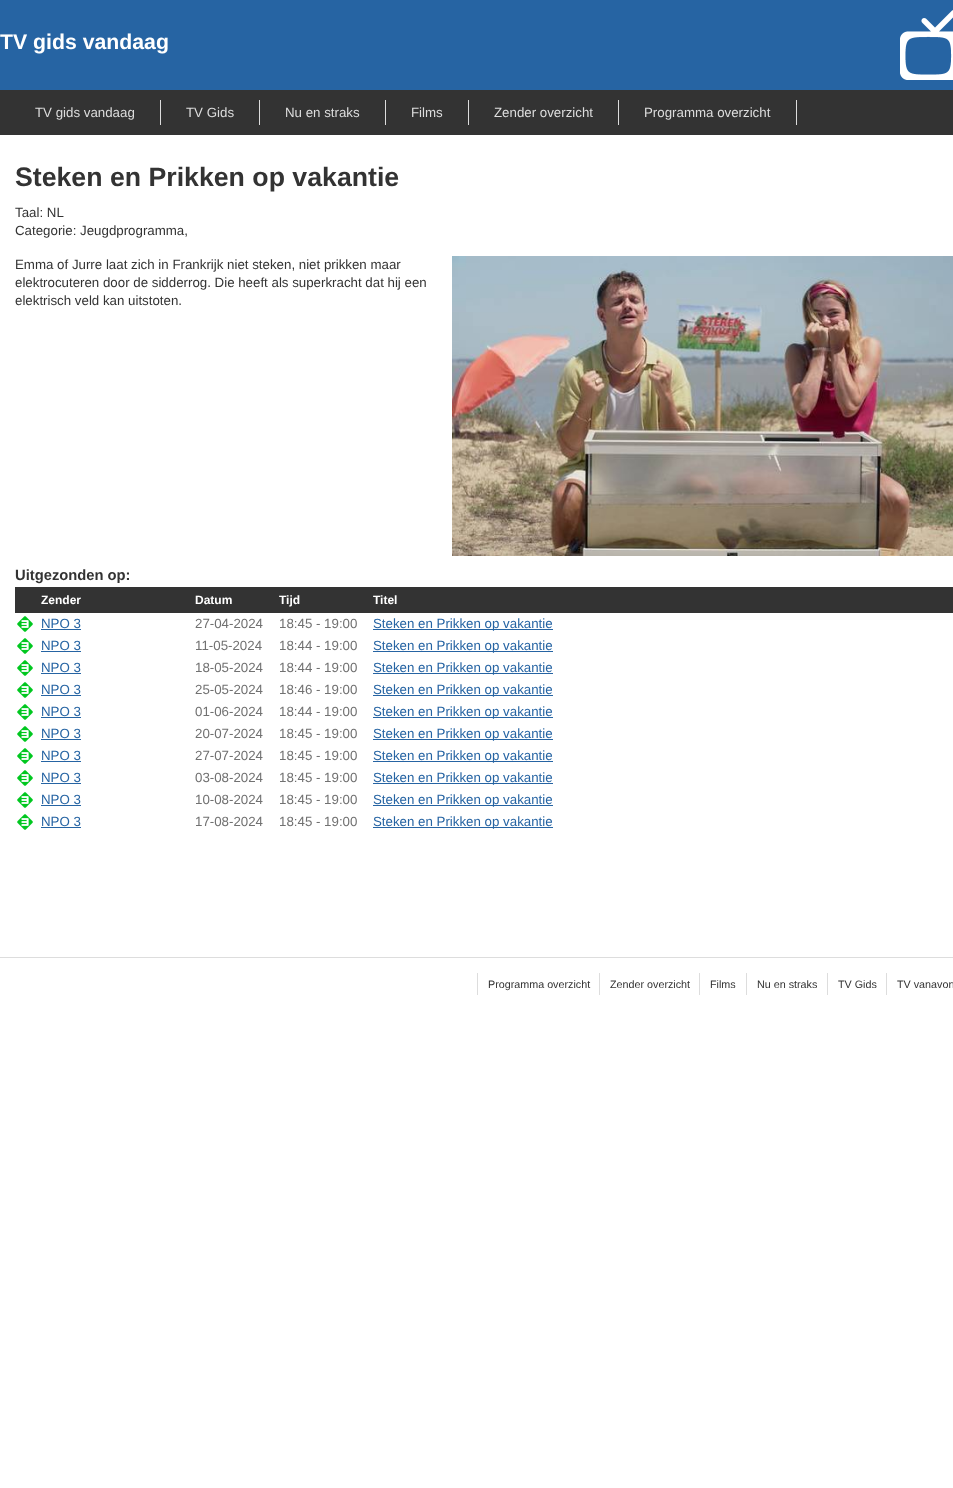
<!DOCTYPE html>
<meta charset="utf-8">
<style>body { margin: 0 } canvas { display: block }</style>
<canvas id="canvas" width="953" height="1488"></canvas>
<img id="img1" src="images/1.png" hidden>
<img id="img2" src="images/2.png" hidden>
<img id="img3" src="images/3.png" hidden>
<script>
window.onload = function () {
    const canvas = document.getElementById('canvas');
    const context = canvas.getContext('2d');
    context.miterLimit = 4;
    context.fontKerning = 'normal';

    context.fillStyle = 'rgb(255, 255, 255)';
    context.fillRect(0, 0, 953, 1488);
    context.fillStyle = 'rgb(38, 100, 163)';
    context.fillRect(0, 0, 953, 90);
    context.drawImage(document.getElementById('img1'), 900, 10, 53, 70);
    context.fillStyle = 'rgb(51, 51, 51)';
    context.fillRect(0, 90, 953, 45);
    context.fillStyle = 'rgb(221, 221, 221)';
    context.fillRect(160, 100, 1, 25);
    context.fillRect(259, 100, 1, 25);
    context.fillRect(385, 100, 1, 25);
    context.fillRect(468, 100, 1, 25);
    context.fillRect(618, 100, 1, 25);
    context.fillRect(796, 100, 1, 25);
    context.drawImage(document.getElementById('img2'), 452, 256, 501, 300);
    context.fillStyle = 'rgb(51, 51, 51)';
    context.fillRect(15, 587, 938, 26);
    context.drawImage(document.getElementById('img3'), 17, 616, 16, 16);
    context.fillStyle = 'rgb(38, 100, 163)';
    context.fillRect(41, 629, 40, 1);
    context.fillRect(373, 629, 180, 1);
    context.drawImage(document.getElementById('img3'), 17, 638, 16, 16);
    context.fillRect(41, 651, 40, 1);
    context.fillRect(373, 651, 180, 1);
    context.drawImage(document.getElementById('img3'), 17, 660, 16, 16);
    context.fillRect(41, 673, 40, 1);
    context.fillRect(373, 673, 180, 1);
    context.drawImage(document.getElementById('img3'), 17, 682, 16, 16);
    context.fillRect(41, 695, 40, 1);
    context.fillRect(373, 695, 180, 1);
    context.drawImage(document.getElementById('img3'), 17, 704, 16, 16);
    context.fillRect(41, 717, 40, 1);
    context.fillRect(373, 717, 180, 1);
    context.drawImage(document.getElementById('img3'), 17, 726, 16, 16);
    context.fillRect(41, 739, 40, 1);
    context.fillRect(373, 739, 180, 1);
    context.drawImage(document.getElementById('img3'), 17, 748, 16, 16);
    context.fillRect(41, 761, 40, 1);
    context.fillRect(373, 761, 180, 1);
    context.drawImage(document.getElementById('img3'), 17, 770, 16, 16);
    context.fillRect(41, 783, 40, 1);
    context.fillRect(373, 783, 180, 1);
    context.drawImage(document.getElementById('img3'), 17, 792, 16, 16);
    context.fillRect(41, 805, 40, 1);
    context.fillRect(373, 805, 180, 1);
    context.drawImage(document.getElementById('img3'), 17, 814, 16, 16);
    context.fillRect(41, 827, 40, 1);
    context.fillRect(373, 827, 180, 1);
    context.fillStyle = 'rgb(221, 221, 221)';
    context.fillRect(0, 957, 953, 1);
    context.fillRect(477, 973, 1, 22);
    context.fillRect(599, 973, 1, 22);
    context.fillRect(699, 973, 1, 22);
    context.fillRect(746, 973, 1, 22);
    context.fillRect(827, 973, 1, 22);
    context.fillRect(886, 973, 1, 22);
    context.font = 'bold 21.25px Liberation Sans';
    context.fillStyle = 'rgb(255, 255, 255)';
    context.fillText('TV gids vandaag', 0, 49);
    context.font = '13.3px Liberation Sans';
    context.fillStyle = 'rgb(221, 221, 221)';
    context.fillText('TV gids vandaag', 35, 117);
    context.fillText('TV Gids', 186, 117);
    context.fillText('Nu en straks', 285, 117);
    context.fillText('Films', 411, 117);
    context.fillText('Zender overzicht', 494, 117);
    context.fillText('Programma overzicht', 644, 117);
    context.font = 'bold 26.7px Liberation Sans';
    context.fillStyle = 'rgb(51, 51, 51)';
    context.fillText('Steken en Prikken op vakantie', 15, 186);
    context.font = '13.3px Liberation Sans';
    context.fillText('Taal: NL', 15, 217);
    context.fillText('Categorie: Jeugdprogramma,', 15, 235);
    context.fillText('Emma of Jurre laat zich in Frankrijk niet steken, niet prikken maar', 15, 269);
    context.fillText('elektrocuteren door de sidderrog. Die heeft als superkracht dat hij een', 15, 287);
    context.fillText('elektrisch veld kan uitstoten.', 15, 305);
    context.font = 'bold 14.75px Liberation Sans';
    context.fillText('Uitgezonden op:', 15, 580);
    context.font = 'bold 12px Liberation Sans';
    context.fillStyle = 'rgb(255, 255, 255)';
    context.fillText('Zender', 41, 604);
    context.fillText('Datum', 195, 604);
    context.fillText('Tijd', 279, 604);
    context.fillText('Titel', 373, 604);
    context.font = '13.3px Liberation Sans';
    context.fillStyle = 'rgb(38, 100, 163)';
    context.fillText('NPO 3', 41, 628);
    context.fillStyle = 'rgb(113, 113, 113)';
    context.fillText('27-04-2024', 195, 628);
    context.fillText('18:45 - 19:00', 279, 628);
    context.fillStyle = 'rgb(38, 100, 163)';
    context.fillText('Steken en Prikken op vakantie', 373, 628);
    context.fillText('NPO 3', 41, 650);
    context.fillStyle = 'rgb(113, 113, 113)';
    context.fillText('11-05-2024', 195, 650);
    context.fillText('18:44 - 19:00', 279, 650);
    context.fillStyle = 'rgb(38, 100, 163)';
    context.fillText('Steken en Prikken op vakantie', 373, 650);
    context.fillText('NPO 3', 41, 672);
    context.fillStyle = 'rgb(113, 113, 113)';
    context.fillText('18-05-2024', 195, 672);
    context.fillText('18:44 - 19:00', 279, 672);
    context.fillStyle = 'rgb(38, 100, 163)';
    context.fillText('Steken en Prikken op vakantie', 373, 672);
    context.fillText('NPO 3', 41, 694);
    context.fillStyle = 'rgb(113, 113, 113)';
    context.fillText('25-05-2024', 195, 694);
    context.fillText('18:46 - 19:00', 279, 694);
    context.fillStyle = 'rgb(38, 100, 163)';
    context.fillText('Steken en Prikken op vakantie', 373, 694);
    context.fillText('NPO 3', 41, 716);
    context.fillStyle = 'rgb(113, 113, 113)';
    context.fillText('01-06-2024', 195, 716);
    context.fillText('18:44 - 19:00', 279, 716);
    context.fillStyle = 'rgb(38, 100, 163)';
    context.fillText('Steken en Prikken op vakantie', 373, 716);
    context.fillText('NPO 3', 41, 738);
    context.fillStyle = 'rgb(113, 113, 113)';
    context.fillText('20-07-2024', 195, 738);
    context.fillText('18:45 - 19:00', 279, 738);
    context.fillStyle = 'rgb(38, 100, 163)';
    context.fillText('Steken en Prikken op vakantie', 373, 738);
    context.fillText('NPO 3', 41, 760);
    context.fillStyle = 'rgb(113, 113, 113)';
    context.fillText('27-07-2024', 195, 760);
    context.fillText('18:45 - 19:00', 279, 760);
    context.fillStyle = 'rgb(38, 100, 163)';
    context.fillText('Steken en Prikken op vakantie', 373, 760);
    context.fillText('NPO 3', 41, 782);
    context.fillStyle = 'rgb(113, 113, 113)';
    context.fillText('03-08-2024', 195, 782);
    context.fillText('18:45 - 19:00', 279, 782);
    context.fillStyle = 'rgb(38, 100, 163)';
    context.fillText('Steken en Prikken op vakantie', 373, 782);
    context.fillText('NPO 3', 41, 804);
    context.fillStyle = 'rgb(113, 113, 113)';
    context.fillText('10-08-2024', 195, 804);
    context.fillText('18:45 - 19:00', 279, 804);
    context.fillStyle = 'rgb(38, 100, 163)';
    context.fillText('Steken en Prikken op vakantie', 373, 804);
    context.fillText('NPO 3', 41, 826);
    context.fillStyle = 'rgb(113, 113, 113)';
    context.fillText('17-08-2024', 195, 826);
    context.fillText('18:45 - 19:00', 279, 826);
    context.fillStyle = 'rgb(38, 100, 163)';
    context.fillText('Steken en Prikken op vakantie', 373, 826);
    context.font = '10.75px Liberation Sans';
    context.fillStyle = 'rgb(51, 51, 51)';
    context.fillText('Programma overzicht', 488, 988);
    context.fillText('Zender overzicht', 610, 988);
    context.fillText('Films', 710, 988);
    context.fillText('Nu en straks', 757, 988);
    context.fillText('TV Gids', 838, 988);
    context.fillText('TV vanavon', 897, 988);
};
</script>
